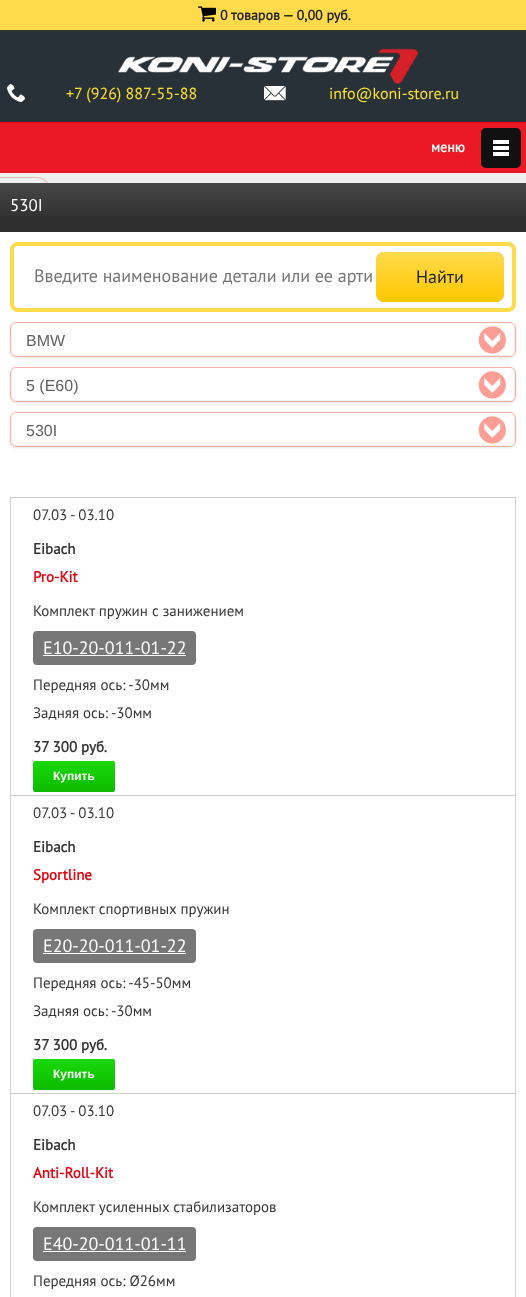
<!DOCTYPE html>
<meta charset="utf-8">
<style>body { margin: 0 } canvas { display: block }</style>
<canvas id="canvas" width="526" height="1297"></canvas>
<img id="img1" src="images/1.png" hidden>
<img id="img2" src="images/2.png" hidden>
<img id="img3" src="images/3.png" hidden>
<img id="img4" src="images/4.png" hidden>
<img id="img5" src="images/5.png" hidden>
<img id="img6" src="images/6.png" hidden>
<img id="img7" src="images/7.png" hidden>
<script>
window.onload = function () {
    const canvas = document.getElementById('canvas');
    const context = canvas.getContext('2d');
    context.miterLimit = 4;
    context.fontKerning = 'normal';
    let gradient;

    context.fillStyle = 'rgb(45, 53, 51)';
    context.fillRect(0, 0, 526, 1297);
    context.fillStyle = 'rgb(239, 239, 239)';
    context.fillRect(0, 173, 526, 10);
    context.drawImage(document.getElementById('img1'), 0, 177, 48, 6);
    context.fillStyle = 'rgb(255, 219, 76)';
    context.fillRect(0, 0, 526, 30);
    context.drawImage(document.getElementById('img2'), 198, 6, 18, 16);
    context.fillStyle = 'rgb(40, 49, 56)';
    context.fillRect(0, 32, 526, 90);
    context.fillStyle = 'rgb(255, 0, 0)';
    context.fillRect(0, 122, 526, 1);
    context.drawImage(document.getElementById('img3'), 118, 48, 300, 36);
    context.drawImage(document.getElementById('img4'), 7, 84, 18, 18);
    context.drawImage(document.getElementById('img5'), 264, 86, 22, 15);
    context.fillStyle = 'rgb(235, 25, 38)';
    context.fillRect(0, 123, 526, 50);
    context.fillStyle = 'rgb(17, 17, 17)';
    context.beginPath();
    context.roundRect(481, 128, 40, 40, 5);
    context.fill();
    context.fillStyle = 'rgb(255, 255, 255)';
    context.fillRect(493, 140, 16, 4);
    context.fillRect(493, 146, 16, 4);
    context.fillRect(493, 152, 16, 4);
    context.fillRect(0, 232, 526, 1065);
    context.fillStyle = 'rgb(47, 47, 47)';
    context.fillRect(0, 216, 526, 16);
    context.drawImage(document.getElementById('img6'), 0, 183, 526, 33);
    context.beginPath();
    context.roundRect(12, 244, 502, 66, 6);
    context.strokeStyle = 'rgb(255, 219, 76)';
    context.lineWidth = 4;
    context.stroke();
    context.fillStyle = 'rgb(188, 188, 188)';
    context.filter = 'blur(0.5px)';
    context.beginPath();
    context.roundRect(376, 252, 128, 50, 8);
    context.fill();
    context.filter = 'none';
    gradient = context.createLinearGradient(440, 252, 440, 302);
    gradient.addColorStop(0, 'rgb(255, 219, 76)');
    gradient.addColorStop(1, 'rgb(255, 199, 0)');
    context.fillStyle = gradient;
    context.beginPath();
    context.roundRect(376, 252, 128, 50, 8);
    context.fill();
    context.fillStyle = 'rgba(0, 0, 0, 0.1)';
    context.filter = 'blur(1px)';
    context.beginPath();
    context.roundRect(10, 323, 506, 35, 6);
    context.fill();
    context.filter = 'none';
    context.fillStyle = 'rgb(255, 255, 255)';
    context.beginPath();
    context.roundRect(10, 322, 506, 35, 6);
    context.fill();
    context.fillStyle = 'rgb(241, 241, 241)';
    context.beginPath();
    context.moveTo(509, 356);
    context.bezierCurveTo(515, 356, 515, 352, 515, 347);
    context.lineTo(515, 332);
    context.bezierCurveTo(515, 327, 515, 323, 509, 323);
    context.bezierCurveTo(512, 323, 514, 325, 514, 328);
    context.lineTo(514, 351);
    context.bezierCurveTo(514, 354, 512, 356, 509, 356);
    context.closePath();
    context.fill();
    context.beginPath();
    context.moveTo(13, 324);
    context.bezierCurveTo(12, 325, 11, 327, 11, 328);
    context.lineTo(11, 351);
    context.bezierCurveTo(11, 354, 13, 356, 16, 356);
    context.lineTo(510, 356);
    context.bezierCurveTo(511, 356, 513, 355, 514, 354);
    context.lineTo(511, 355);
    context.lineTo(17, 355);
    context.bezierCurveTo(12, 355, 12, 350, 12, 346);
    context.lineTo(12, 338);
    context.bezierCurveTo(12, 335, 11, 327, 13, 324);
    context.closePath();
    context.fill();
    context.beginPath();
    context.roundRect(10.5, 322.5, 505, 34, 5.5);
    context.strokeStyle = 'rgb(255, 176, 164)';
    context.lineWidth = 1;
    context.stroke();
    context.drawImage(document.getElementById('img7'), 478, 326, 28, 28);
    context.fillStyle = 'rgba(0, 0, 0, 0.1)';
    context.filter = 'blur(1px)';
    context.beginPath();
    context.roundRect(10, 368, 506, 35, 6);
    context.fill();
    context.filter = 'none';
    context.fillStyle = 'rgb(255, 255, 255)';
    context.beginPath();
    context.roundRect(10, 367, 506, 35, 6);
    context.fill();
    context.fillStyle = 'rgb(241, 241, 241)';
    context.beginPath();
    context.moveTo(509, 401);
    context.bezierCurveTo(515, 401, 515, 397, 515, 392);
    context.lineTo(515, 377);
    context.bezierCurveTo(515, 372, 515, 368, 509, 368);
    context.bezierCurveTo(512, 368, 514, 370, 514, 373);
    context.lineTo(514, 396);
    context.bezierCurveTo(514, 399, 512, 401, 509, 401);
    context.closePath();
    context.fill();
    context.beginPath();
    context.moveTo(13, 369);
    context.bezierCurveTo(12, 370, 11, 372, 11, 373);
    context.lineTo(11, 396);
    context.bezierCurveTo(11, 399, 13, 401, 16, 401);
    context.lineTo(510, 401);
    context.bezierCurveTo(511, 401, 513, 400, 514, 399);
    context.lineTo(511, 400);
    context.lineTo(17, 400);
    context.bezierCurveTo(12, 400, 12, 395, 12, 391);
    context.lineTo(12, 384);
    context.bezierCurveTo(12, 380, 11, 372, 13, 369);
    context.closePath();
    context.fill();
    context.beginPath();
    context.roundRect(10.5, 367.5, 505, 34, 5.5);
    context.stroke();
    context.drawImage(document.getElementById('img7'), 478, 371, 28, 28);
    context.fillStyle = 'rgba(0, 0, 0, 0.1)';
    context.filter = 'blur(1px)';
    context.beginPath();
    context.roundRect(10, 413, 506, 35, 6);
    context.fill();
    context.filter = 'none';
    context.fillStyle = 'rgb(255, 255, 255)';
    context.beginPath();
    context.roundRect(10, 412, 506, 35, 6);
    context.fill();
    context.fillStyle = 'rgb(241, 241, 241)';
    context.beginPath();
    context.moveTo(509, 446);
    context.bezierCurveTo(515, 446, 515, 442, 515, 437);
    context.lineTo(515, 422);
    context.bezierCurveTo(515, 417, 515, 413, 509, 413);
    context.bezierCurveTo(512, 413, 514, 415, 514, 418);
    context.lineTo(514, 441);
    context.bezierCurveTo(514, 444, 512, 446, 509, 446);
    context.closePath();
    context.fill();
    context.beginPath();
    context.moveTo(13, 414);
    context.bezierCurveTo(12, 415, 11, 417, 11, 418);
    context.lineTo(11, 441);
    context.bezierCurveTo(11, 444, 13, 446, 16, 446);
    context.lineTo(510, 446);
    context.bezierCurveTo(511, 446, 513, 445, 514, 444);
    context.lineTo(511, 445);
    context.lineTo(17, 445);
    context.bezierCurveTo(12, 445, 12, 440, 12, 436);
    context.lineTo(12, 428);
    context.bezierCurveTo(12, 425, 11, 417, 13, 414);
    context.closePath();
    context.fill();
    context.beginPath();
    context.roundRect(10.5, 412.5, 505, 34, 5.5);
    context.stroke();
    context.drawImage(document.getElementById('img7'), 478, 416, 28, 28);
    context.fillStyle = 'rgb(209, 209, 209)';
    context.fillRect(515, 497, 1, 800);
    context.fillRect(10, 497, 1, 800);
    context.fillStyle = 'rgb(204, 204, 204)';
    context.fillRect(10, 497, 506, 1);
    context.fillRect(10, 795, 506, 1);
    context.fillStyle = 'rgb(119, 119, 119)';
    context.beginPath();
    context.roundRect(33, 631, 163, 34, 4);
    context.fill();
    context.fillStyle = 'rgb(255, 255, 255)';
    context.fillRect(43, 655, 143, 1);
    gradient = context.createLinearGradient(33, 761, 33, 792);
    gradient.addColorStop(0, 'rgb(24, 217, 9)');
    gradient.addColorStop(1, 'rgb(14, 186, 0)');
    context.fillStyle = gradient;
    context.beginPath();
    context.roundRect(33, 761, 82, 31, 2);
    context.fill();
    context.fillStyle = 'rgb(204, 204, 204)';
    context.fillRect(10, 1093, 506, 1);
    context.fillStyle = 'rgb(119, 119, 119)';
    context.beginPath();
    context.roundRect(33, 929, 163, 34, 4);
    context.fill();
    context.fillStyle = 'rgb(255, 255, 255)';
    context.fillRect(43, 953, 143, 1);
    gradient = context.createLinearGradient(33, 1059, 33, 1090);
    gradient.addColorStop(0, 'rgb(24, 217, 9)');
    gradient.addColorStop(1, 'rgb(14, 186, 0)');
    context.fillStyle = gradient;
    context.beginPath();
    context.roundRect(33, 1059, 82, 31, 2);
    context.fill();
    context.fillStyle = 'rgb(119, 119, 119)';
    context.beginPath();
    context.roundRect(33, 1227, 163, 34, 4);
    context.fill();
    context.fillStyle = 'rgb(255, 255, 255)';
    context.fillRect(43, 1251, 143, 1);
    context.font = 'bold 14px PT Sans';
    context.fillStyle = 'rgb(34, 34, 34)';
    context.fillText('0 товаров — 0,00 руб.', 220, 20);
    context.font = '16px PT Sans';
    context.fillStyle = 'rgb(252, 225, 46)';
    context.fillText('+7 (926) 887-55-88', 66, 99);
    context.fillText('info@koni-store.ru', 329, 99);
    context.font = 'bold 14px PT Sans';
    context.fillStyle = 'rgb(255, 255, 255)';
    context.fillText('меню', 431, 152);
    context.font = '17px PT Sans';
    context.fillText('530I', 10, 211);
    context.font = '18px PT Sans';
    context.fillStyle = 'rgb(117, 117, 117)';
    context.fillText('Введите наименование детали или ее арти', 34, 282);
    context.fillStyle = 'rgb(34, 34, 34)';
    context.fillText('Найти', 416, 283);
    context.font = '16px Liberation Sans';
    context.fillStyle = 'rgb(97, 97, 97)';
    context.fillText('BMW', 26, 346);
    context.fillText('5 (E60)', 26, 391);
    context.fillText('530I', 26, 436);
    context.font = '15px PT Sans';
    context.fillStyle = 'rgb(54, 54, 54)';
    context.fillText('07.03 - 03.10', 33, 520);
    context.font = 'bold 15px PT Sans';
    context.fillText('Eibach', 33, 554);
    context.fillStyle = 'rgb(227, 6, 19)';
    context.fillText('Pro-Kit', 33, 582);
    context.font = '15px PT Sans';
    context.fillStyle = 'rgb(54, 54, 54)';
    context.fillText('Комплект пружин с занижением', 33, 616);
    context.font = '18px PT Sans';
    context.fillStyle = 'rgb(255, 255, 255)';
    context.fillText('E10-20-011-01-22', 43, 654);
    context.font = '15px PT Sans';
    context.fillStyle = 'rgb(54, 54, 54)';
    context.fillText('Передняя ось: -30мм', 33, 690);
    context.fillText('Задняя ось: -30мм', 33, 718);
    context.font = 'bold 15px PT Sans';
    context.fillText('37 300 руб.', 33, 752);
    context.font = 'bold 12px Liberation Sans';
    context.fillStyle = 'rgb(255, 255, 255)';
    context.fillText('Купить', 53, 780);
    context.font = '15px PT Sans';
    context.fillStyle = 'rgb(54, 54, 54)';
    context.fillText('07.03 - 03.10', 33, 818);
    context.font = 'bold 15px PT Sans';
    context.fillText('Eibach', 33, 852);
    context.fillStyle = 'rgb(227, 6, 19)';
    context.fillText('Sportline', 33, 880);
    context.font = '15px PT Sans';
    context.fillStyle = 'rgb(54, 54, 54)';
    context.fillText('Комплект спортивных пружин', 33, 914);
    context.font = '18px PT Sans';
    context.fillStyle = 'rgb(255, 255, 255)';
    context.fillText('E20-20-011-01-22', 43, 952);
    context.font = '15px PT Sans';
    context.fillStyle = 'rgb(54, 54, 54)';
    context.fillText('Передняя ось: -45-50мм', 33, 988);
    context.fillText('Задняя ось: -30мм', 33, 1016);
    context.font = 'bold 15px PT Sans';
    context.fillText('37 300 руб.', 33, 1050);
    context.font = 'bold 12px Liberation Sans';
    context.fillStyle = 'rgb(255, 255, 255)';
    context.fillText('Купить', 53, 1078);
    context.font = '15px PT Sans';
    context.fillStyle = 'rgb(54, 54, 54)';
    context.fillText('07.03 - 03.10', 33, 1116);
    context.font = 'bold 15px PT Sans';
    context.fillText('Eibach', 33, 1150);
    context.fillStyle = 'rgb(227, 6, 19)';
    context.fillText('Anti-Roll-Kit', 33, 1178);
    context.font = '15px PT Sans';
    context.fillStyle = 'rgb(54, 54, 54)';
    context.fillText('Комплект усиленных стабилизаторов', 33, 1212);
    context.font = '18px PT Sans';
    context.fillStyle = 'rgb(255, 255, 255)';
    context.fillText('E40-20-011-01-11', 43, 1250);
    context.font = '15px PT Sans';
    context.fillStyle = 'rgb(54, 54, 54)';
    context.fillText('Передняя ось: Ø26мм', 33, 1286);
};
</script>
